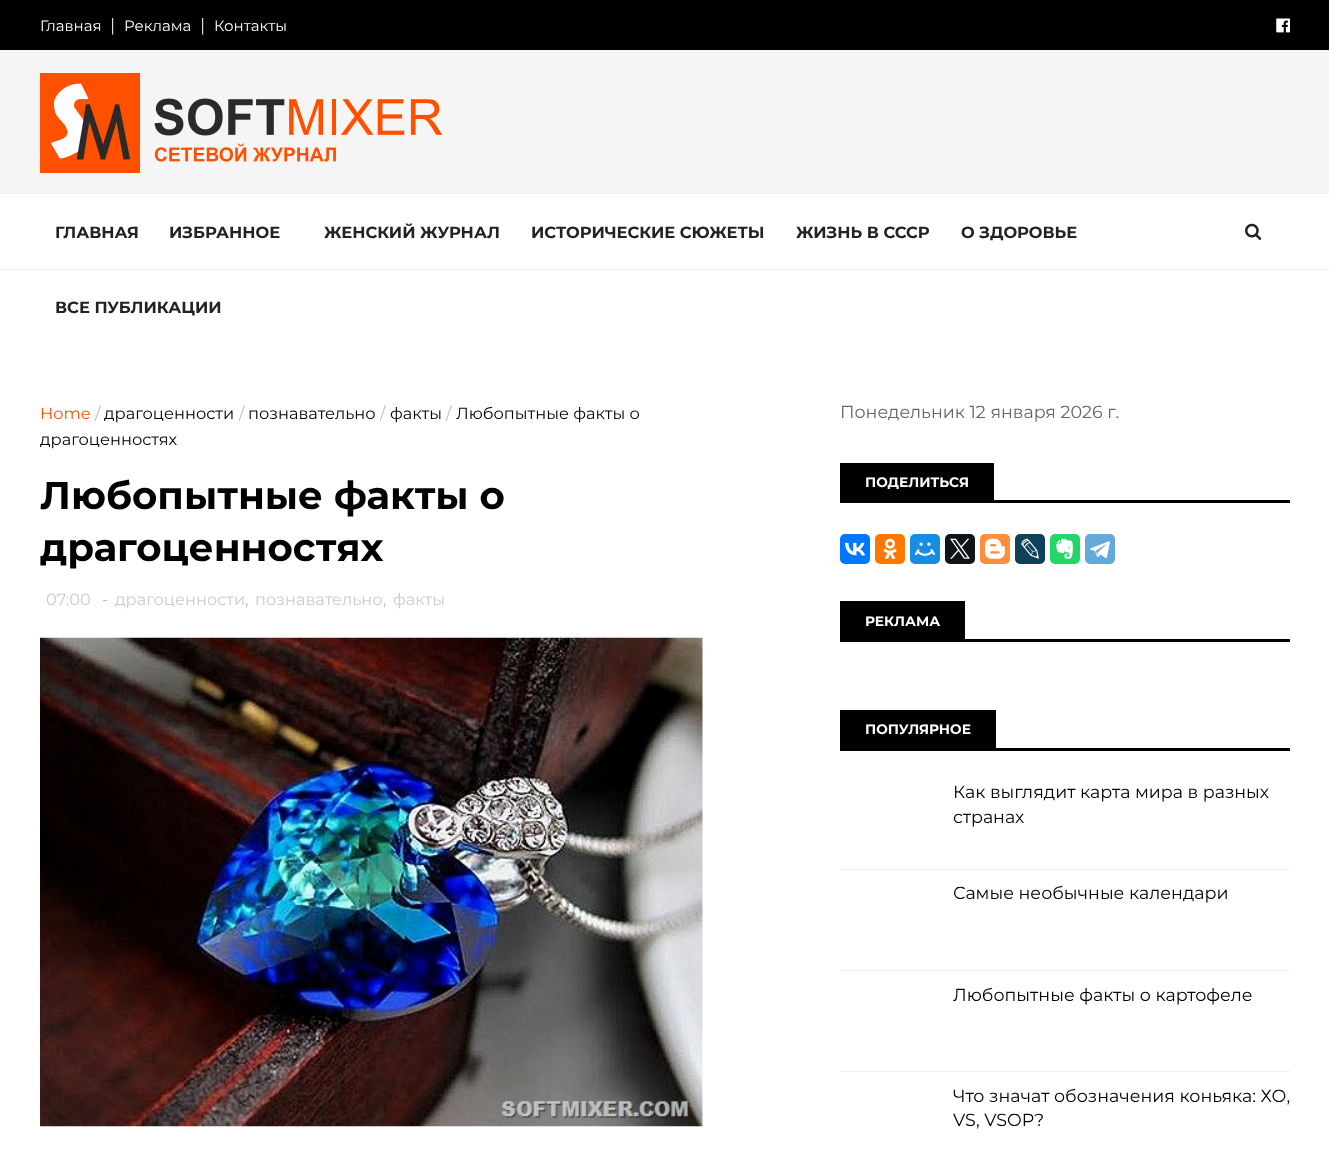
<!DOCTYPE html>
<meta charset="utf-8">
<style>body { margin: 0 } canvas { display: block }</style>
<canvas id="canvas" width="1329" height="1153"></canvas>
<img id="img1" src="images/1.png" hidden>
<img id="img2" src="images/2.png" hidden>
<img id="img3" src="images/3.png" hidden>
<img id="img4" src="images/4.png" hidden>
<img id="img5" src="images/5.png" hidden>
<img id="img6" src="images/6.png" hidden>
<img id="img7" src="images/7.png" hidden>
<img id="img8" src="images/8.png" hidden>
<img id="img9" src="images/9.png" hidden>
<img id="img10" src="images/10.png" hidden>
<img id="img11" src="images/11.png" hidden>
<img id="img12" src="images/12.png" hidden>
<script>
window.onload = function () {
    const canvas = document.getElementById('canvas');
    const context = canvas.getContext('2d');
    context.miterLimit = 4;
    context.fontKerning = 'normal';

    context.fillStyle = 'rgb(255, 255, 255)';
    context.fillRect(0, 0, 1329, 1153);
    context.fillStyle = 'rgb(1, 1, 1)';
    context.fillRect(0, 0, 1329, 50);
    context.drawImage(document.getElementById('img1'), 1276, 18, 14, 15);
    context.fillStyle = 'rgb(245, 245, 245)';
    context.fillRect(0, 50, 1329, 143);
    context.drawImage(document.getElementById('img2'), 40, 73, 403, 100);
    context.fillStyle = 'rgb(238, 238, 238)';
    context.fillRect(0, 193, 1329, 1);
    context.fillRect(0, 269, 1329, 1);
    context.drawImage(document.getElementById('img3'), 1245, 223, 17, 17);
    context.drawImage(document.getElementById('img4'), 40, 637, 663, 490);
    context.fillStyle = 'rgb(0, 0, 0)';
    context.fillRect(840, 500, 450, 3);
    context.fillRect(840, 463, 154, 37);
    context.fillStyle = 'rgb(0, 119, 255)';
    context.beginPath();
    context.roundRect(840, 534, 30, 30, 5);
    context.fill();
    context.drawImage(document.getElementById('img5'), 845, 542, 20, 14);
    context.fillStyle = 'rgb(255, 119, 0)';
    context.beginPath();
    context.roundRect(875, 534, 30, 30, 5);
    context.fill();
    context.drawImage(document.getElementById('img6'), 883, 538, 14, 21);
    context.fillStyle = 'rgb(22, 141, 226)';
    context.beginPath();
    context.roundRect(910, 534, 30, 30, 5);
    context.fill();
    context.drawImage(document.getElementById('img7'), 915, 542, 20, 14);
    context.fillStyle = 'rgb(15, 20, 25)';
    context.beginPath();
    context.roundRect(945, 534, 30, 30, 5);
    context.fill();
    context.drawImage(document.getElementById('img8'), 950, 538, 20, 21);
    context.fillStyle = 'rgb(251, 143, 61)';
    context.beginPath();
    context.roundRect(980, 534, 30, 30, 5);
    context.fill();
    context.drawImage(document.getElementById('img9'), 985, 538, 20, 21);
    context.fillStyle = 'rgb(13, 66, 90)';
    context.beginPath();
    context.roundRect(1015, 534, 30, 30, 5);
    context.fill();
    context.drawImage(document.getElementById('img10'), 1021, 538, 18, 21);
    context.fillStyle = 'rgb(36, 214, 102)';
    context.beginPath();
    context.roundRect(1050, 534, 30, 30, 5);
    context.fill();
    context.drawImage(document.getElementById('img11'), 1056, 538, 17, 21);
    context.fillStyle = 'rgb(100, 169, 220)';
    context.beginPath();
    context.roundRect(1085, 534, 30, 30, 5);
    context.fill();
    context.drawImage(document.getElementById('img12'), 1090, 541, 20, 17);
    context.fillStyle = 'rgb(0, 0, 0)';
    context.fillRect(840, 639, 450, 3);
    context.fillRect(840, 601, 125, 38);
    context.fillRect(840, 748, 450, 3);
    context.fillRect(840, 710, 156, 38);
    context.fillStyle = 'rgb(238, 238, 238)';
    context.fillRect(840, 869, 450, 1);
    context.fillRect(840, 970, 450, 1);
    context.fillRect(840, 1071, 450, 1);
    context.font = '15px Montserrat';
    context.fillStyle = 'rgb(255, 255, 255)';
    context.fillText('Главная', 40, 31);
    context.font = '17.5px Montserrat';
    context.fillStyle = 'rgb(221, 221, 221)';
    context.fillText('|', 110, 31);
    context.font = '15px Montserrat';
    context.fillStyle = 'rgb(255, 255, 255)';
    context.fillText('Реклама', 124, 31);
    context.font = '17.5px Montserrat';
    context.fillStyle = 'rgb(221, 221, 221)';
    context.fillText('|', 200, 31);
    context.font = '15px Montserrat';
    context.fillStyle = 'rgb(255, 255, 255)';
    context.fillText('Контакты', 214, 31);
    context.font = 'bold 16.25px Montserrat';
    context.fillStyle = 'rgb(34, 34, 34)';
    context.fillText('ИЗБРАННОЕ', 169, 238);
    context.fillText('ЖЕНСКИЙ ЖУРНАЛ', 324, 238);
    context.fillText('ИСТОРИЧЕСКИЕ СЮЖЕТЫ', 531, 238);
    context.fillText('ЖИЗНЬ В СССР', 796, 238);
    context.fillText('О ЗДОРОВЬЕ', 961, 238);
    context.fillText('ВСЕ ПУБЛИКАЦИИ', 55, 313);
    context.fillText('ГЛАВНАЯ', 55, 238);
    context.font = '16.25px Montserrat';
    context.fillStyle = 'rgb(255, 81, 2)';
    context.fillText('Home', 40, 419);
    context.fillStyle = 'rgb(189, 189, 189)';
    context.fillText('/', 95, 419);
    context.fillStyle = 'rgb(1, 1, 1)';
    context.fillText('драгоценности', 104, 419);
    context.fillStyle = 'rgb(189, 189, 189)';
    context.fillText('/', 239, 419);
    context.fillStyle = 'rgb(1, 1, 1)';
    context.fillText('познавательно', 248, 419);
    context.fillStyle = 'rgb(189, 189, 189)';
    context.fillText('/', 380, 419);
    context.fillStyle = 'rgb(1, 1, 1)';
    context.fillText('факты', 390, 419);
    context.fillStyle = 'rgb(189, 189, 189)';
    context.fillText('/', 446, 419);
    context.fillStyle = 'rgb(1, 1, 1)';
    context.fillText('Любопытные факты о', 456, 419);
    context.fillText('драгоценностях', 40, 445);
    context.font = 'bold 38.75px Montserrat';
    context.fillText('Любопытные факты о', 40, 509);
    context.fillText('драгоценностях', 40, 561);
    context.font = '16.25px Montserrat';
    context.fillStyle = 'rgb(203, 203, 203)';
    context.fillText('07:00', 46, 605);
    context.fillStyle = 'rgb(189, 189, 189)';
    context.fillText('-', 102, 605);
    context.fillStyle = 'rgb(203, 203, 203)';
    context.fillText('драгоценности', 115, 605);
    context.fillText('познавательно', 255, 605);
    context.fillText('факты', 393, 605);
    context.fillStyle = 'rgb(189, 189, 189)';
    context.fillText(',', 245, 605);
    context.fillText(',', 383, 605);
    context.font = '17.5px Montserrat';
    context.fillStyle = 'rgb(102, 102, 102)';
    context.fillText('Понедельник 12 января 2026 г.', 840, 418);
    context.font = 'bold 13.75px Montserrat';
    context.fillStyle = 'rgb(255, 255, 255)';
    context.fillText('ПОДЕЛИТЬСЯ', 865, 487);
    context.fillText('РЕКЛАМА', 865, 626);
    context.fillText('ПОПУЛЯРНОЕ', 865, 734);
    context.font = '17.5px Montserrat';
    context.fillStyle = 'rgb(1, 1, 1)';
    context.fillText('Как выглядит карта мира в разных', 953, 798);
    context.fillText('странах', 953, 823);
    context.fillText('Самые необычные календари', 953, 899);
    context.fillText('Любопытные факты о картофеле', 953, 1001);
    context.fillText('Что значат обозначения коньяка: ХО,', 953, 1102);
    context.fillText('VS, VSOP?', 953, 1126);
};
</script>
